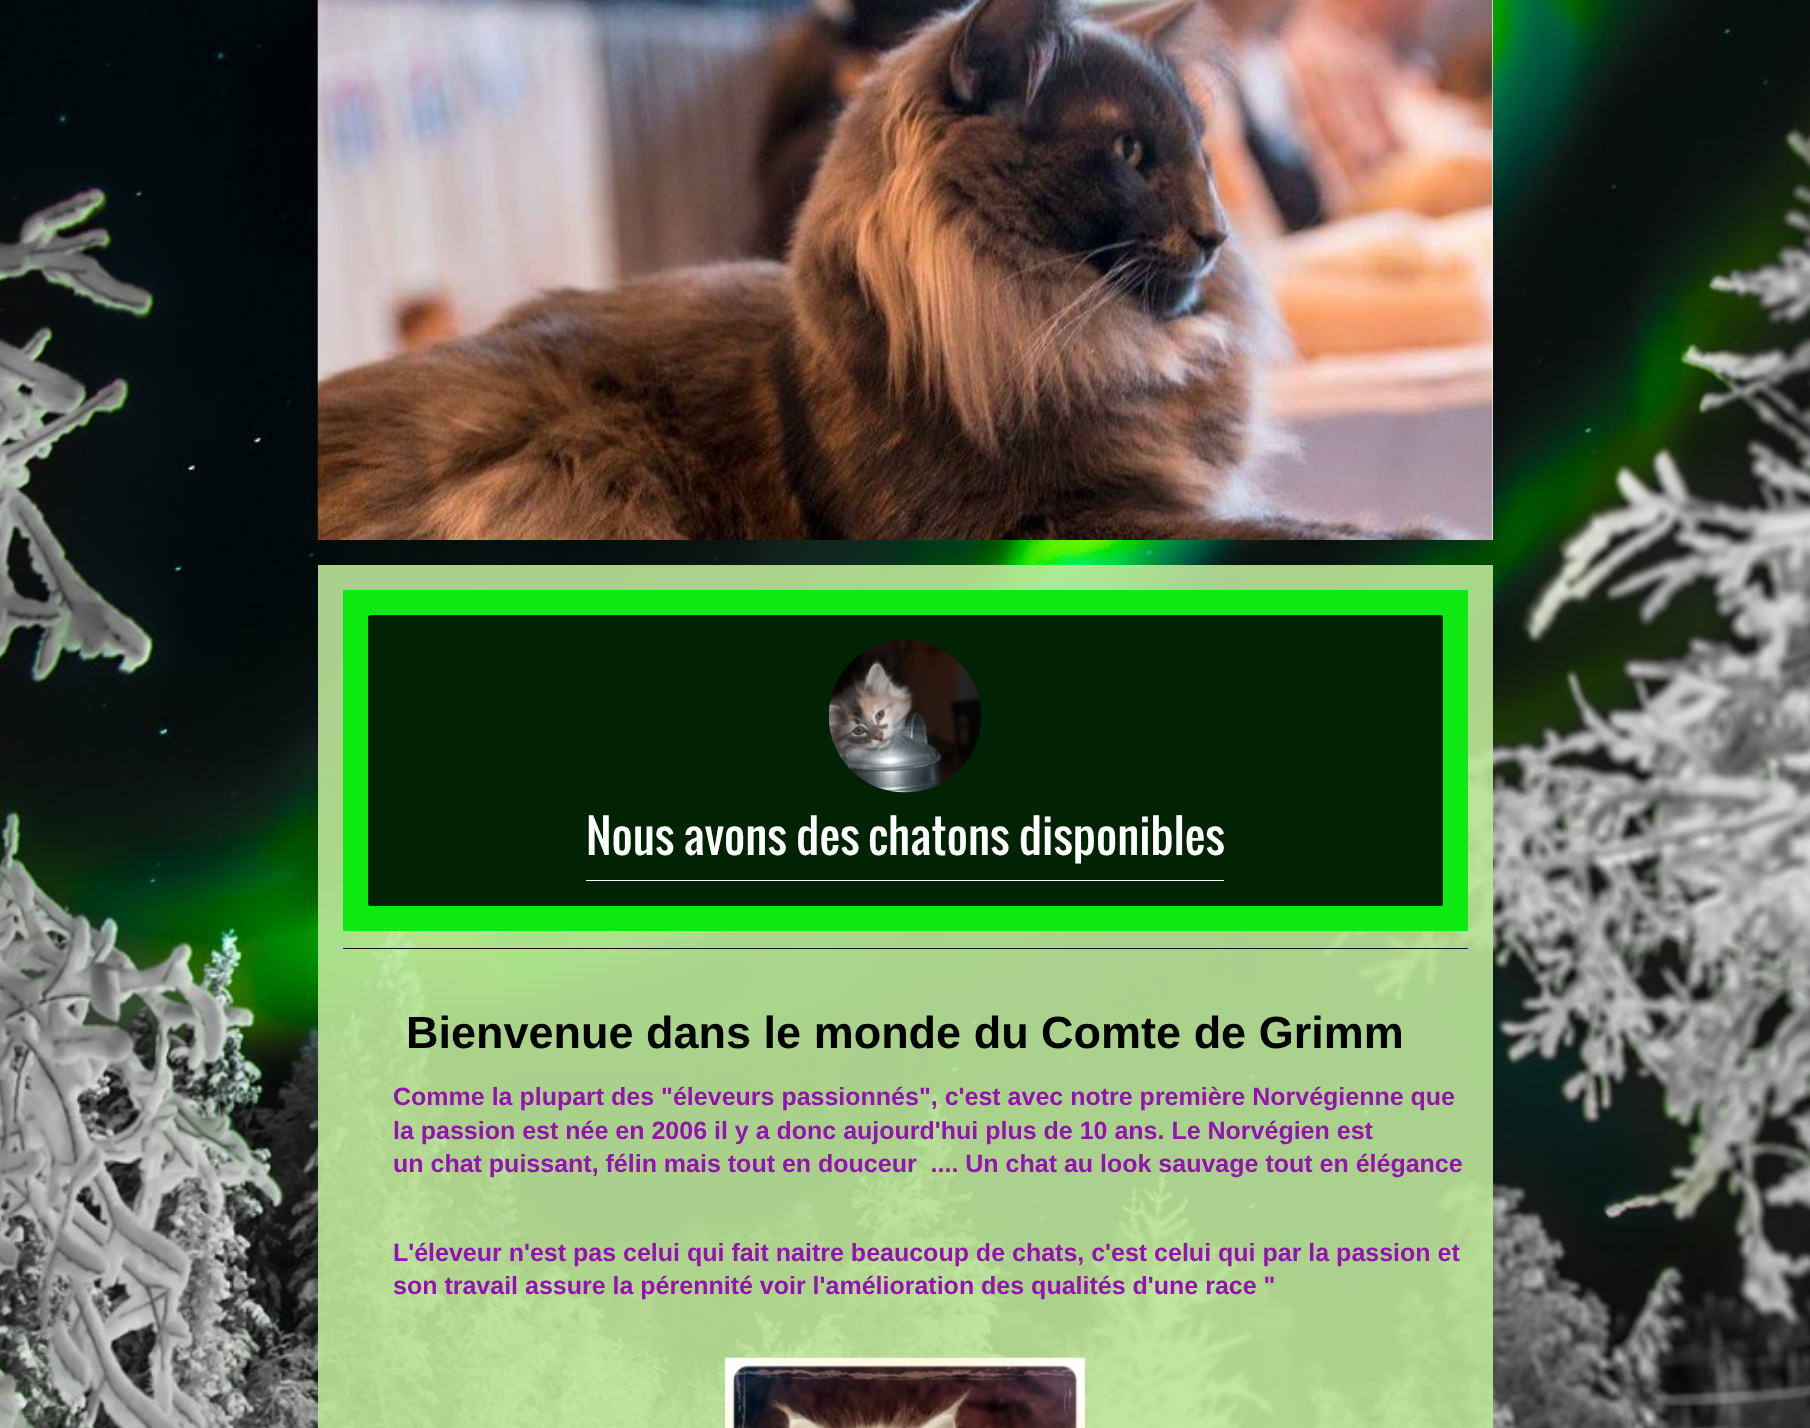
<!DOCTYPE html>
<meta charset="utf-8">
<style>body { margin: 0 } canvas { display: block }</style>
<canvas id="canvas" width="1810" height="1428"></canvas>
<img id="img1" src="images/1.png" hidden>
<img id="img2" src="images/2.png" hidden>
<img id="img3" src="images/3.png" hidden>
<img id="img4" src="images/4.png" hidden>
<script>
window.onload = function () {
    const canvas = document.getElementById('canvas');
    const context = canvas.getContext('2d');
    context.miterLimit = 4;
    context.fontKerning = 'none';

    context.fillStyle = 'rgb(255, 255, 255)';
    context.fillRect(0, 0, 1810, 1428);
    context.drawImage(document.getElementById('img1'), 0, 0, 1810, 1428);
    context.fillStyle = 'rgb(238, 238, 238)';
    context.fillRect(1492, 0, 1, 540);
    context.drawImage(document.getElementById('img2'), 317, 0, 1176, 540);
    context.fillStyle = 'rgba(188, 231, 153, 0.9)';
    context.fillRect(318, 565, 1175, 863);
    context.fillStyle = 'rgb(14, 235, 19)';
    context.fillRect(343, 590, 1125, 341);
    context.fillStyle = 'rgb(2, 35, 3)';
    context.beginPath();
    context.roundRect(368, 615, 1075, 291, 2.5);
    context.fill();
    context.drawImage(document.getElementById('img3'), 828, 640, 153, 153);
    context.fillStyle = 'rgb(255, 255, 255)';
    context.fillRect(586, 880, 638, 1);
    context.fillStyle = 'rgb(19, 23, 15)';
    context.fillRect(343, 948, 1125, 1);
    context.drawImage(document.getElementById('img4'), 725, 1357, 360, 71);
    context.font = '45.5px Oswald';
    context.fillStyle = 'rgb(255, 255, 255)';
    context.fillText('Nous avons des chatons disponibles', 586, 855);
    context.font = 'bold 45px Liberation Sans';
    context.fillStyle = 'rgb(0, 0, 0)';
    context.fillText('Bienvenue dans le monde du Comte de Grimm', 406, 1048);
    context.font = 'bold 25px Liberation Sans';
    context.fillStyle = 'rgb(150, 17, 178)';
    context.fillText('Comme la plupart des "éleveurs passionnés", c\'est avec notre première Norvégienne que', 393, 1105);
    context.fillText('la passion est née en 2006 il y a donc aujourd\'hui plus de 10 ans. Le Norvégien est', 393, 1139);
    context.fillText('un chat puissant, félin mais tout en douceur  .... Un chat au look sauvage tout en élégance', 393, 1172);
    context.fillText('L\'éleveur n\'est pas celui qui fait naitre beaucoup de chats, c\'est celui qui par la passion et', 393, 1261);
    context.fillText('son travail assure la pérennité voir l\'amélioration des qualités d\'une race "', 393, 1294);
};
</script>
